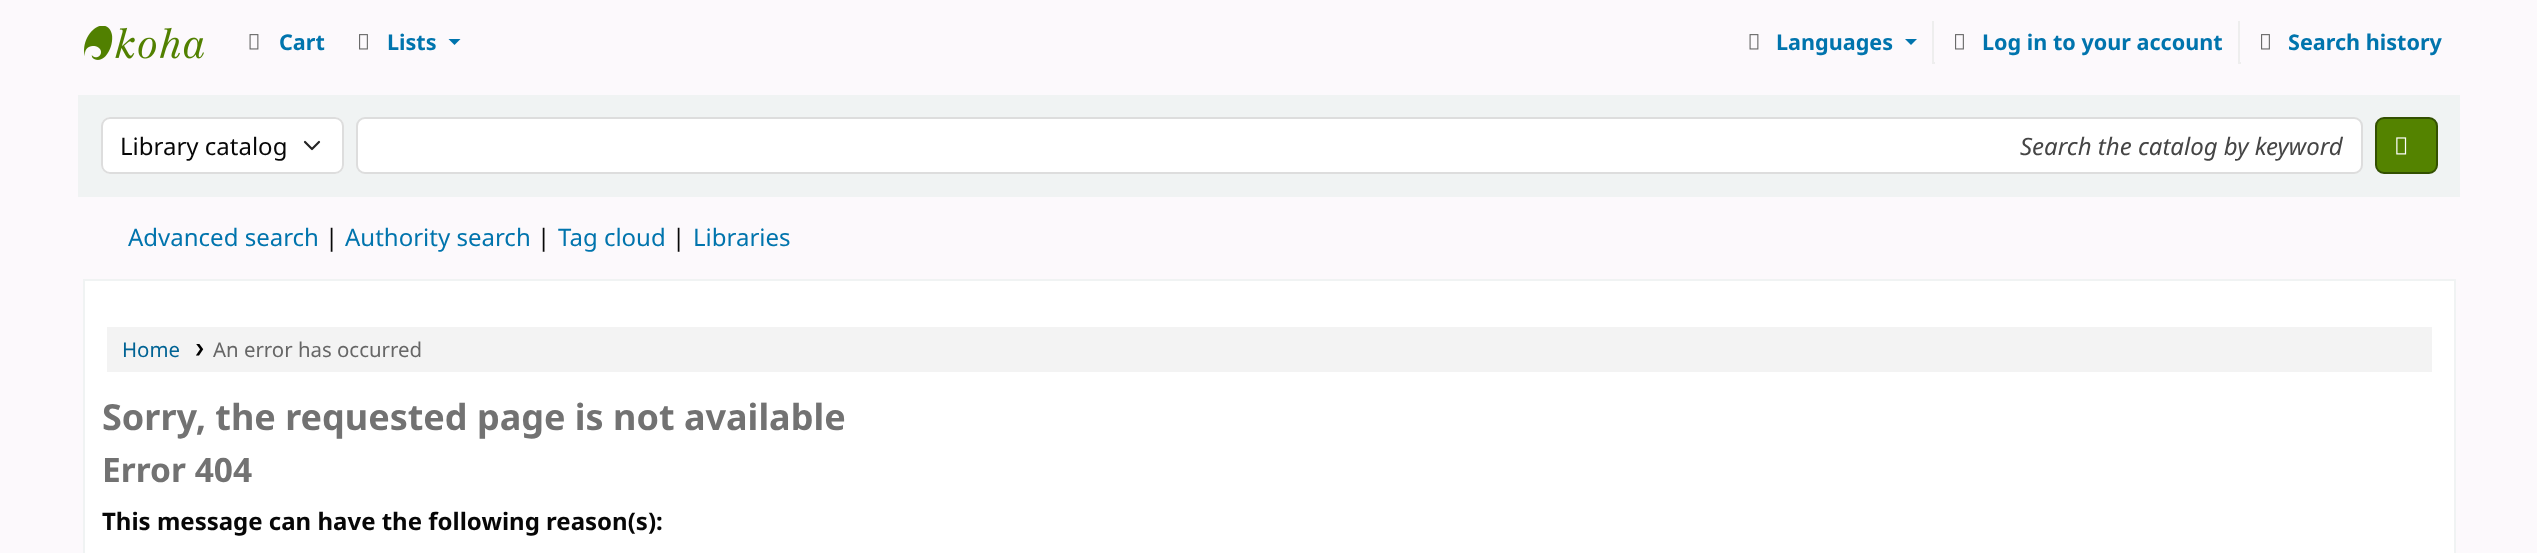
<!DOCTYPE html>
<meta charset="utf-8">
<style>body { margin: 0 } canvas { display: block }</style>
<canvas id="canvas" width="2537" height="553"></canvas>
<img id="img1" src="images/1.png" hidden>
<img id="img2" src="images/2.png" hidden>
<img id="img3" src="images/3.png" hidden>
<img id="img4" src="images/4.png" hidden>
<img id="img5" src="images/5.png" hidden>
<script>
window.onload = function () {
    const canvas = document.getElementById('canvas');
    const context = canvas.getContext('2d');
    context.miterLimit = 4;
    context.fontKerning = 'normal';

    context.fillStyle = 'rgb(252, 249, 252)';
    context.fillRect(0, 0, 2537, 553);
    context.drawImage(document.getElementById('img1'), 84, 26, 120, 34);
    context.drawImage(document.getElementById('img2'), 249, 34, 10, 16);
    context.drawImage(document.getElementById('img3'), 359, 34, 9, 16);
    context.fillStyle = 'rgb(0, 116, 173)';
    context.beginPath();
    context.moveTo(448.5, 39);
    context.lineTo(460.5, 39);
    context.lineTo(454.5, 45);
    context.closePath();
    context.fill();
    context.drawImage(document.getElementById('img2'), 1749, 34, 10, 16);
    context.beginPath();
    context.moveTo(1905, 39);
    context.lineTo(1917, 39);
    context.lineTo(1911, 45);
    context.closePath();
    context.fill();
    context.fillStyle = 'rgb(238, 238, 238)';
    context.fillRect(1932, 62, 3, 2);
    context.fillRect(1932, 21, 2, 42);
    context.drawImage(document.getElementById('img3'), 1955, 34, 9, 16);
    context.fillRect(2238, 62, 3, 2);
    context.fillRect(2238, 21, 2, 42);
    context.drawImage(document.getElementById('img3'), 2261, 34, 9, 16);
    context.fillStyle = 'rgb(240, 243, 243)';
    context.fillRect(78, 95, 2382, 102);
    context.fillStyle = 'rgb(255, 255, 255)';
    context.beginPath();
    context.roundRect(101, 117, 243, 57, 9);
    context.fill();
    context.beginPath();
    context.moveTo(305, 142);
    context.lineTo(312, 149);
    context.lineTo(319, 142);
    context.strokeStyle = 'rgb(37, 37, 37)';
    context.lineWidth = 2.2;
    context.lineCap = 'round';
    context.lineJoin = 'round';
    context.stroke();
    context.beginPath();
    context.roundRect(102, 118, 241, 55, 8);
    context.strokeStyle = 'rgb(221, 221, 221)';
    context.lineWidth = 2;
    context.lineJoin = 'miter';
    context.stroke();
    context.beginPath();
    context.roundRect(357, 118, 2005, 55, 8);
    context.fill();
    context.stroke();
    context.fillStyle = 'rgb(84, 131, 0)';
    context.beginPath();
    context.roundRect(2376, 118, 61, 55, 8);
    context.fill();
    context.strokeStyle = 'rgb(51, 80, 0)';
    context.stroke();
    context.drawImage(document.getElementById('img4'), 2396, 137, 11, 18);
    context.fillStyle = 'rgb(255, 255, 255)';
    context.beginPath();
    context.rect(84, 280, 2371, 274);
    context.fill();
    context.strokeStyle = 'rgb(240, 243, 243)';
    context.stroke();
    context.fillStyle = 'rgb(243, 243, 243)';
    context.fillRect(107, 327, 2325, 45);
    context.drawImage(document.getElementById('img5'), 196, 344, 8, 12);
    context.font = 'bold 21.6px Noto Sans';
    context.fillStyle = 'rgb(0, 116, 173)';
    context.fillText('Cart', 279, 50);
    context.fillText('Lists', 387, 50);
    context.fillText('Languages', 1776, 50);
    context.fillText('Log in to your account', 1982, 50);
    context.fillText('Search history', 2288, 50);
    context.font = '24px Noto Sans';
    context.fillStyle = 'rgb(7, 7, 7)';
    context.fillText('Library catalog', 120, 155);
    context.font = 'italic 24px Noto Sans';
    context.fillStyle = 'rgb(69, 69, 69)';
    context.fillText('Search the catalog by keyword', 2020, 155);
    context.font = '24px Noto Sans';
    context.fillStyle = 'rgb(0, 116, 173)';
    context.fillText('Advanced search', 128, 246);
    context.fillStyle = 'rgb(7, 7, 7)';
    context.fillText('|', 325, 246);
    context.fillStyle = 'rgb(0, 116, 173)';
    context.fillText('Authority search', 345, 246);
    context.fillStyle = 'rgb(7, 7, 7)';
    context.fillText('|', 537, 246);
    context.fillStyle = 'rgb(0, 116, 173)';
    context.fillText('Tag cloud', 558, 246);
    context.fillStyle = 'rgb(7, 7, 7)';
    context.fillText('|', 672, 246);
    context.fillStyle = 'rgb(0, 116, 173)';
    context.fillText('Libraries', 693, 246);
    context.font = '20.4px Noto Sans';
    context.fillStyle = 'rgb(0, 99, 148)';
    context.fillText('Home', 122, 357);
    context.fillStyle = 'rgb(102, 102, 102)';
    context.fillText('An error has occurred', 213, 357);
    context.font = 'bold 36px Noto Sans';
    context.fillStyle = 'rgb(114, 114, 114)';
    context.fillText('Sorry, the requested page is not available', 102, 430);
    context.font = 'bold 33.5px Noto Sans';
    context.fillText('Error 404', 102, 482);
    context.font = 'bold 24px Noto Sans';
    context.fillStyle = 'rgb(7, 7, 7)';
    context.fillText('This message can have the following reason(s):', 102, 530);
};
</script>
